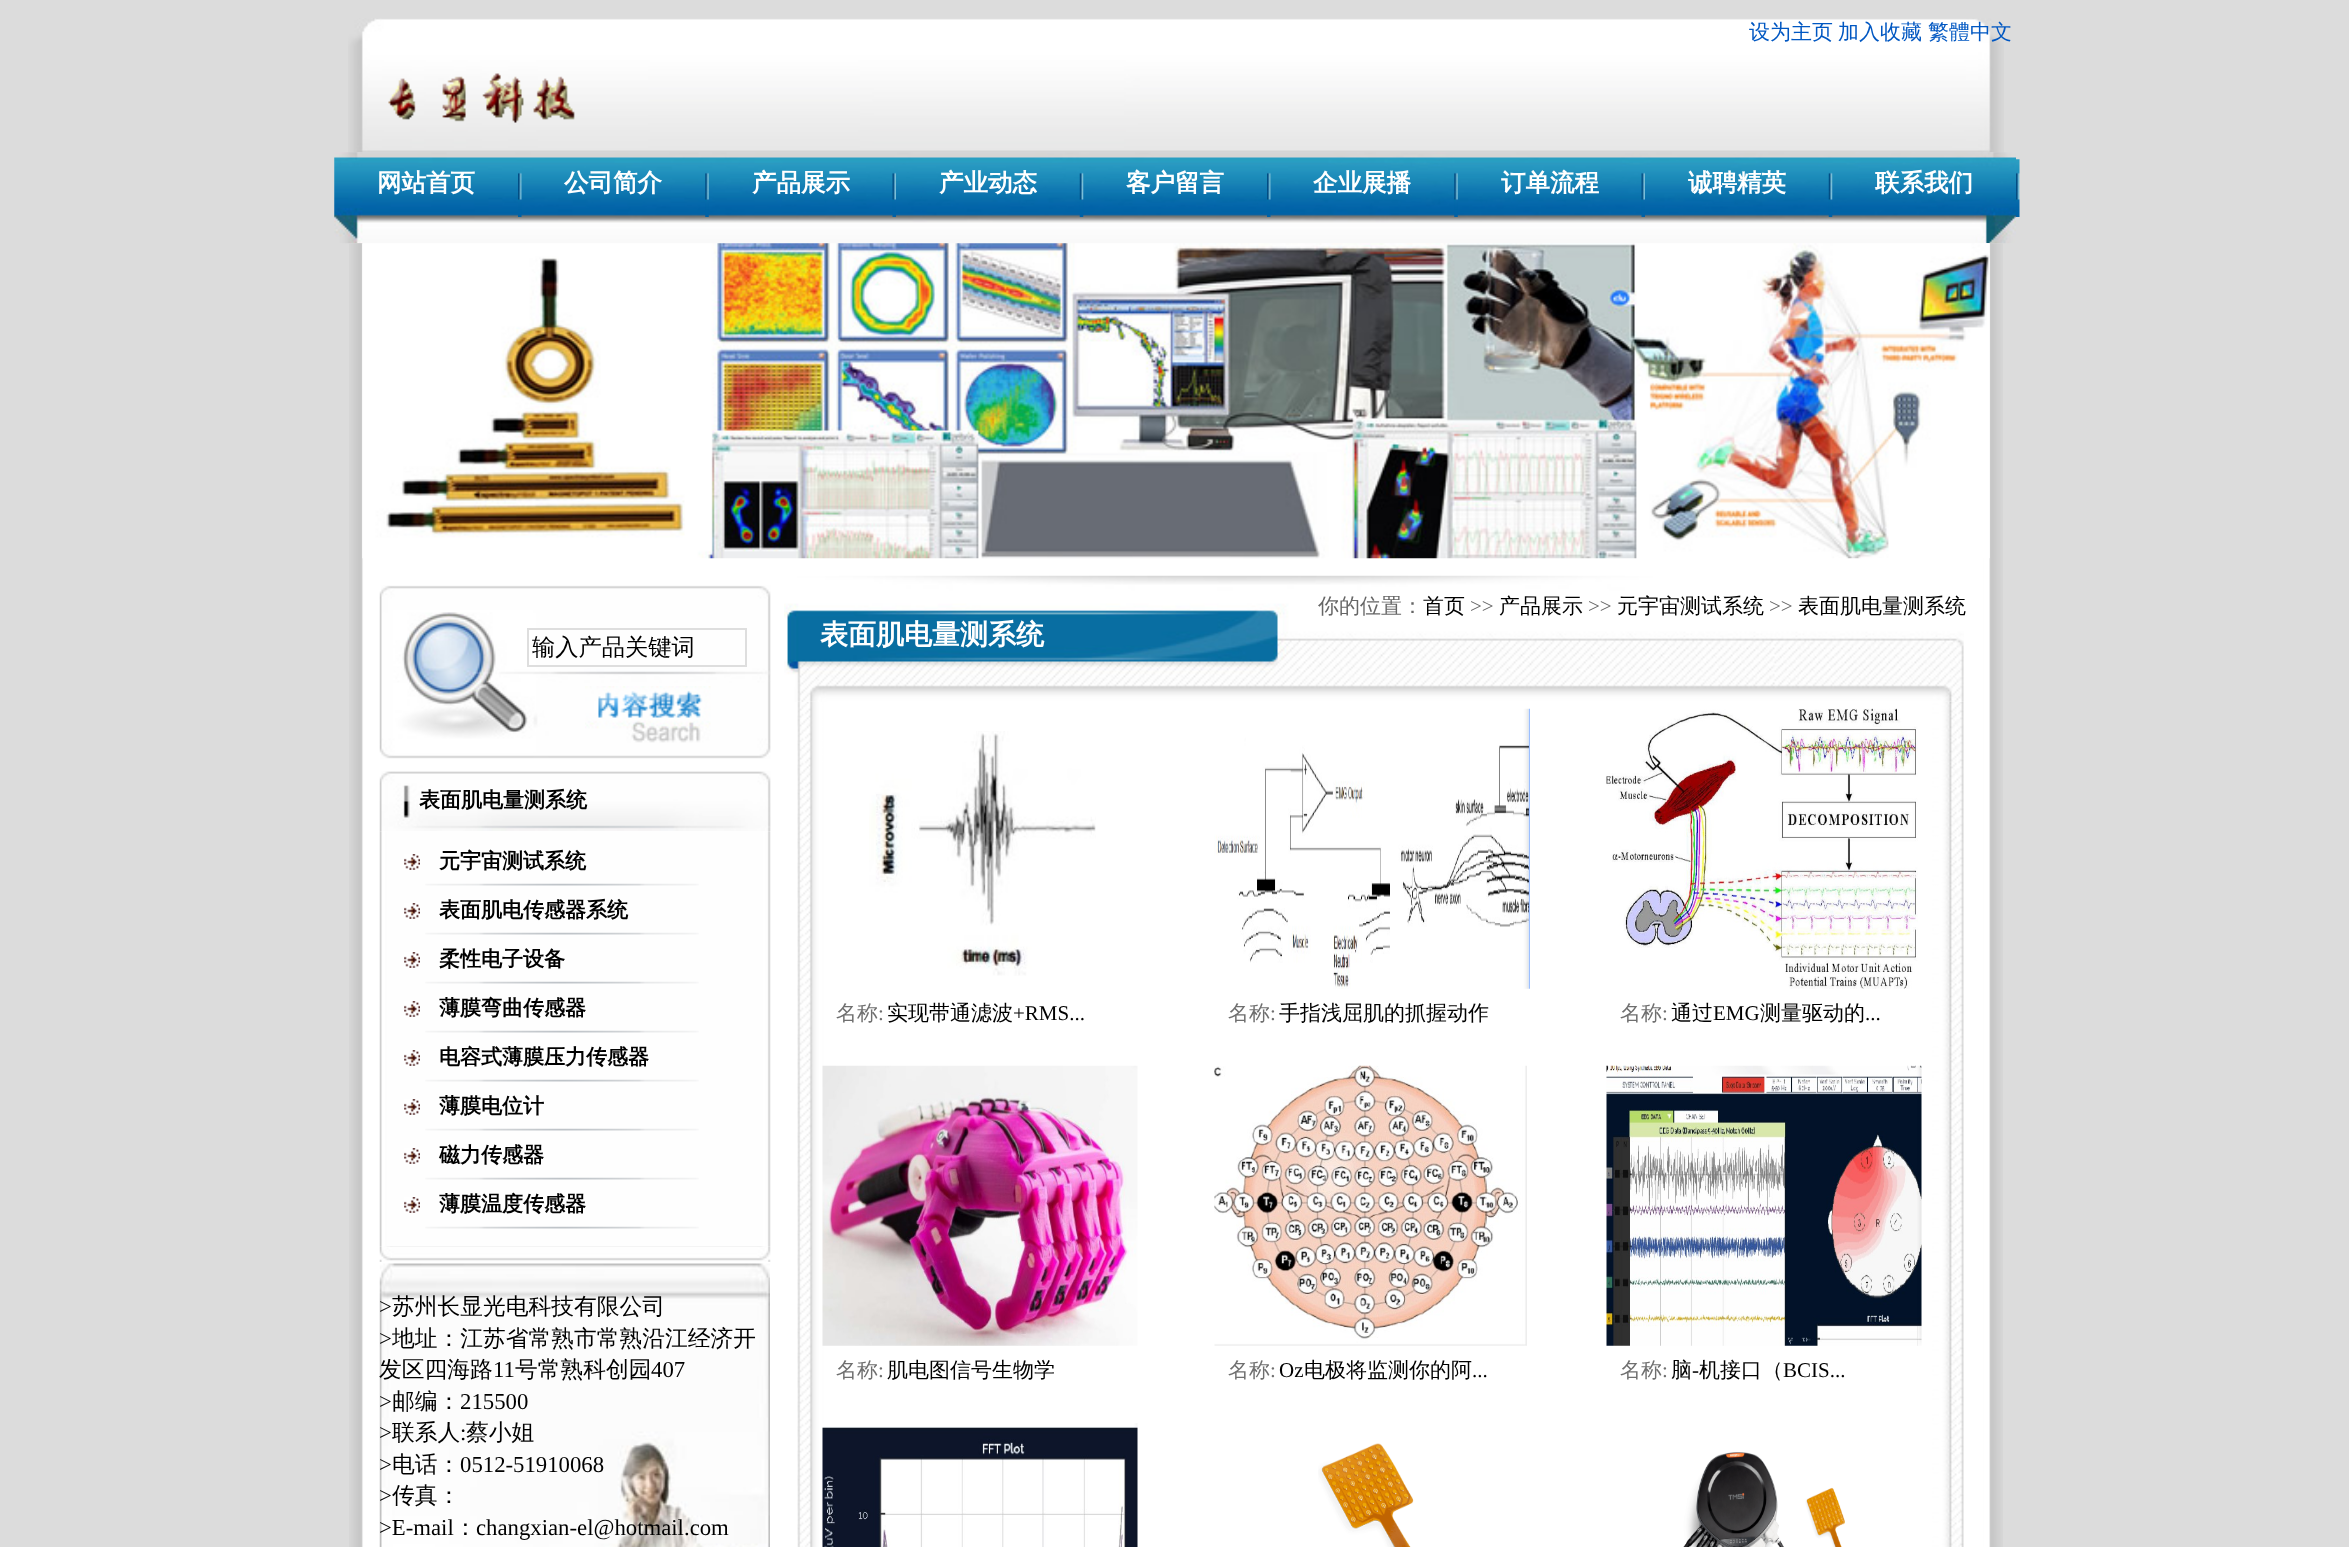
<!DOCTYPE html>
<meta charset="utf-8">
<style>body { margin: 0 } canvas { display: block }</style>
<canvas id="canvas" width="2349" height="1547"></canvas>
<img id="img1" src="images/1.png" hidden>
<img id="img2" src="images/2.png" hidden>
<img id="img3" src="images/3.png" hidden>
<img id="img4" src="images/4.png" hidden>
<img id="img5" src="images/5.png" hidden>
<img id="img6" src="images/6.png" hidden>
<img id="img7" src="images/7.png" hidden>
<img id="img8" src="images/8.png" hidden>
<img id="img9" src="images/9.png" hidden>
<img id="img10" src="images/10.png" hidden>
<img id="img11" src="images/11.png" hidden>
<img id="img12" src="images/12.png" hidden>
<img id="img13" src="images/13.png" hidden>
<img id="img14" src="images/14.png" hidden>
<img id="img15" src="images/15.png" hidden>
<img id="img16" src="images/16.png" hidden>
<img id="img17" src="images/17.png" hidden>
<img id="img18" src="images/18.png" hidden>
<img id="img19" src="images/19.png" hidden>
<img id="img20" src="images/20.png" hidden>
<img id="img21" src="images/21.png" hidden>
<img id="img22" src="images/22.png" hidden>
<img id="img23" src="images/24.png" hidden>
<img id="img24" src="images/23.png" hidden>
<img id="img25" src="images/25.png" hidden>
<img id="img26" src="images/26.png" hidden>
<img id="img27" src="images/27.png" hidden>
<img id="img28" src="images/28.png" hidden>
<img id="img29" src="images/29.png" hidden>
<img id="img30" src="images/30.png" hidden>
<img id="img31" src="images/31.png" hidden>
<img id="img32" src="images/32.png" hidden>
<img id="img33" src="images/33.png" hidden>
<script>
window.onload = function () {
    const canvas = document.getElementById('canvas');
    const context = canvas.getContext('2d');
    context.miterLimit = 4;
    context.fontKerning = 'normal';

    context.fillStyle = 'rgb(220, 220, 220)';
    context.fillRect(0, 0, 2349, 1547);
    context.drawImage(document.getElementById('img1'), 348, 18, 1656, 135);
    context.drawImage(document.getElementById('img2'), 388, 73, 187, 50);
    context.drawImage(document.getElementById('img3'), 334, 152, 1682, 92);
    context.drawImage(document.getElementById('img4'), 518, 172, 4, 45);
    context.drawImage(document.getElementById('img5'), 705, 172, 4, 45);
    context.drawImage(document.getElementById('img6'), 892, 172, 4, 45);
    context.drawImage(document.getElementById('img7'), 1079, 172, 5, 45);
    context.drawImage(document.getElementById('img8'), 1267, 172, 4, 45);
    context.drawImage(document.getElementById('img9'), 1454, 172, 4, 45);
    context.drawImage(document.getElementById('img10'), 1641, 172, 4, 45);
    context.drawImage(document.getElementById('img11'), 1828, 172, 5, 45);
    context.drawImage(document.getElementById('img12'), 2016, 159, 4, 58);
    context.drawImage(document.getElementById('img13'), 349, 243, 1654, 1304);
    context.drawImage(document.getElementById('img14'), 362, 243, 1628, 316);
    context.drawImage(document.getElementById('img15'), 379, 585, 392, 174);
    context.strokeStyle = 'rgb(222, 222, 222)';
    context.lineWidth = 2;
    context.strokeRect(528, 629, 218, 37);
    context.drawImage(document.getElementById('img16'), 585, 686, 126, 57);
    context.drawImage(document.getElementById('img17'), 379, 771, 392, 61);
    context.drawImage(document.getElementById('img18'), 379, 831, 392, 415);
    context.drawImage(document.getElementById('img19'), 404, 854, 16, 16);
    context.drawImage(document.getElementById('img20'), 425, 883, 274, 3);
    context.drawImage(document.getElementById('img19'), 404, 903, 16, 16);
    context.drawImage(document.getElementById('img20'), 425, 932, 274, 3);
    context.drawImage(document.getElementById('img19'), 404, 952, 16, 16);
    context.drawImage(document.getElementById('img20'), 425, 981, 274, 3);
    context.drawImage(document.getElementById('img19'), 404, 1001, 16, 16);
    context.drawImage(document.getElementById('img20'), 425, 1030, 274, 3);
    context.drawImage(document.getElementById('img19'), 404, 1050, 16, 16);
    context.drawImage(document.getElementById('img20'), 425, 1079, 274, 3);
    context.drawImage(document.getElementById('img19'), 404, 1099, 16, 16);
    context.drawImage(document.getElementById('img20'), 425, 1128, 274, 3);
    context.drawImage(document.getElementById('img19'), 404, 1148, 16, 16);
    context.drawImage(document.getElementById('img20'), 425, 1177, 274, 3);
    context.drawImage(document.getElementById('img19'), 404, 1197, 16, 16);
    context.drawImage(document.getElementById('img20'), 425, 1226, 274, 3);
    context.drawImage(document.getElementById('img21'), 379, 1246, 392, 16);
    context.drawImage(document.getElementById('img22'), 379, 1263, 391, 284);
    context.drawImage(document.getElementById('img23'), 797, 701, 1167, 846);
    context.drawImage(document.getElementById('img24'), 784, 575, 1180, 127);
    context.drawImage(document.getElementById('img25'), 869, 731, 227, 245);
    context.drawImage(document.getElementById('img26'), 1214, 708, 316, 281);
    context.drawImage(document.getElementById('img27'), 1606, 708, 312, 281);
    context.drawImage(document.getElementById('img28'), 822, 1065, 316, 281);
    context.drawImage(document.getElementById('img29'), 1214, 1065, 313, 281);
    context.drawImage(document.getElementById('img30'), 1606, 1065, 316, 281);
    context.drawImage(document.getElementById('img31'), 822, 1423, 316, 124);
    context.drawImage(document.getElementById('img32'), 1318, 1443, 96, 104);
    context.drawImage(document.getElementById('img33'), 1683, 1452, 162, 95);
    context.font = '500 21px WenQuanYi Zen Hei';
    context.fillStyle = 'rgb(0, 87, 194)';
    context.fillText('设为主页', 1749, 39);
    context.fillText('加入收藏', 1838, 39);
    context.fillText('繁體中文', 1928, 39);
    context.font = 'bold 24.5px WenQuanYi Zen Hei';
    context.fillStyle = 'rgb(255, 255, 255)';
    context.fillText('网站首页', 377, 191);
    context.fillText('公司简介', 564, 191);
    context.fillText('产品展示', 752, 191);
    context.fillText('产业动态', 939, 191);
    context.fillText('客户留言', 1126, 191);
    context.fillText('企业展播', 1313, 191);
    context.fillText('订单流程', 1501, 191);
    context.fillText('诚聘精英', 1688, 191);
    context.fillText('联系我们', 1875, 191);
    context.font = '500 23.25px WenQuanYi Zen Hei';
    context.fillStyle = 'rgb(0, 0, 0)';
    context.fillText('输入产品关键词', 532, 655);
    context.font = 'bold 21px WenQuanYi Zen Hei';
    context.fillText('表面肌电量测系统', 419, 807);
    context.fillText('元宇宙测试系统', 439, 868);
    context.fillText('表面肌电传感器系统', 439, 917);
    context.fillText('柔性电子设备', 439, 966);
    context.fillText('薄膜弯曲传感器', 439, 1015);
    context.fillText('电容式薄膜压力传感器', 439, 1064);
    context.fillText('薄膜电位计', 439, 1113);
    context.fillText('磁力传感器', 439, 1162);
    context.fillText('薄膜温度传感器', 439, 1211);
    context.font = '22.75px Liberation Serif';
    context.fillText('>', 379, 1314);
    context.font = '500 22.75px WenQuanYi Zen Hei';
    context.fillText('苏州长显光电科技有限公司', 392, 1314);
    context.font = '22.75px Liberation Serif';
    context.fillText('>', 379, 1346);
    context.font = '500 22.75px WenQuanYi Zen Hei';
    context.fillText('地址：江苏省常熟市常熟沿江经济开', 392, 1346);
    context.fillText('发区四海路', 379, 1377);
    context.font = '22.75px Liberation Serif';
    context.fillText('11', 493, 1377);
    context.font = '500 22.75px WenQuanYi Zen Hei';
    context.fillText('号常熟科创园', 515, 1377);
    context.font = '22.75px Liberation Serif';
    context.fillText('407', 651, 1377);
    context.fillText('>', 379, 1409);
    context.font = '500 22.75px WenQuanYi Zen Hei';
    context.fillText('邮编：', 392, 1409);
    context.font = '22.75px Liberation Serif';
    context.fillText('215500', 460, 1409);
    context.fillText('>', 379, 1440);
    context.font = '500 22.75px WenQuanYi Zen Hei';
    context.fillText('联系人', 392, 1440);
    context.font = '22.75px Liberation Serif';
    context.fillText(':', 460, 1440);
    context.font = '500 22.75px WenQuanYi Zen Hei';
    context.fillText('蔡小姐', 466, 1440);
    context.font = '22.75px Liberation Serif';
    context.fillText('>', 379, 1472);
    context.font = '500 22.75px WenQuanYi Zen Hei';
    context.fillText('电话：', 392, 1472);
    context.font = '22.75px Liberation Serif';
    context.fillText('0512-51910068', 460, 1472);
    context.fillText('>', 379, 1503);
    context.font = '500 22.75px WenQuanYi Zen Hei';
    context.fillText('传真：', 392, 1503);
    context.font = '22.75px Liberation Serif';
    context.fillText('>E-mail', 379, 1535);
    context.font = '500 22.75px WenQuanYi Zen Hei';
    context.fillText('：', 454, 1535);
    context.font = '22.75px Liberation Serif';
    context.fillText('changxian-el@hotmail.com', 476, 1535);
    context.font = '500 21px WenQuanYi Zen Hei';
    context.fillStyle = 'rgb(102, 102, 102)';
    context.fillText('你的位置：', 1318, 613);
    context.fillStyle = 'rgb(0, 0, 0)';
    context.fillText('首页', 1423, 613);
    context.font = '21px Liberation Serif';
    context.fillStyle = 'rgb(102, 102, 102)';
    context.fillText('>>', 1470, 613);
    context.font = '500 21px WenQuanYi Zen Hei';
    context.fillStyle = 'rgb(0, 0, 0)';
    context.fillText('产品展示', 1499, 613);
    context.font = '21px Liberation Serif';
    context.fillStyle = 'rgb(102, 102, 102)';
    context.fillText('>>', 1588, 613);
    context.font = '500 21px WenQuanYi Zen Hei';
    context.fillStyle = 'rgb(0, 0, 0)';
    context.fillText('元宇宙测试系统', 1617, 613);
    context.font = '21px Liberation Serif';
    context.fillStyle = 'rgb(102, 102, 102)';
    context.fillText('>>', 1769, 613);
    context.font = '500 21px WenQuanYi Zen Hei';
    context.fillStyle = 'rgb(0, 0, 0)';
    context.fillText('表面肌电量测系统', 1798, 613);
    context.font = 'bold 28px WenQuanYi Zen Hei';
    context.fillStyle = 'rgb(255, 255, 255)';
    context.fillText('表面肌电量测系统', 820, 644);
    context.font = '500 21px WenQuanYi Zen Hei';
    context.fillStyle = 'rgb(111, 111, 111)';
    context.fillText('名称', 836, 1020);
    context.font = '21px Liberation Serif';
    context.fillText(':', 878, 1020);
    context.font = '500 21px WenQuanYi Zen Hei';
    context.fillStyle = 'rgb(0, 0, 0)';
    context.fillText('实现带通滤波', 887, 1020);
    context.font = '21px Liberation Serif';
    context.fillText('+RMS...', 1013, 1020);
    context.font = '500 21px WenQuanYi Zen Hei';
    context.fillStyle = 'rgb(111, 111, 111)';
    context.fillText('名称', 1228, 1020);
    context.font = '21px Liberation Serif';
    context.fillText(':', 1270, 1020);
    context.font = '500 21px WenQuanYi Zen Hei';
    context.fillStyle = 'rgb(0, 0, 0)';
    context.fillText('手指浅屈肌的抓握动作', 1279, 1020);
    context.fillStyle = 'rgb(111, 111, 111)';
    context.fillText('名称', 1620, 1020);
    context.font = '21px Liberation Serif';
    context.fillText(':', 1662, 1020);
    context.font = '500 21px WenQuanYi Zen Hei';
    context.fillStyle = 'rgb(0, 0, 0)';
    context.fillText('通过', 1671, 1020);
    context.font = '21px Liberation Serif';
    context.fillText('EMG', 1713, 1020);
    context.font = '500 21px WenQuanYi Zen Hei';
    context.fillText('测量驱动的', 1760, 1020);
    context.font = '21px Liberation Serif';
    context.fillText('...', 1865, 1020);
    context.font = '500 21px WenQuanYi Zen Hei';
    context.fillStyle = 'rgb(111, 111, 111)';
    context.fillText('名称', 836, 1377);
    context.font = '21px Liberation Serif';
    context.fillText(':', 878, 1377);
    context.font = '500 21px WenQuanYi Zen Hei';
    context.fillStyle = 'rgb(0, 0, 0)';
    context.fillText('肌电图信号生物学', 887, 1377);
    context.fillStyle = 'rgb(111, 111, 111)';
    context.fillText('名称', 1228, 1377);
    context.font = '21px Liberation Serif';
    context.fillText(':', 1270, 1377);
    context.fillStyle = 'rgb(0, 0, 0)';
    context.fillText('Oz', 1279, 1377);
    context.font = '500 21px WenQuanYi Zen Hei';
    context.fillText('电极将监测你的阿', 1304, 1377);
    context.font = '21px Liberation Serif';
    context.fillText('...', 1472, 1377);
    context.font = '500 21px WenQuanYi Zen Hei';
    context.fillStyle = 'rgb(111, 111, 111)';
    context.fillText('名称', 1620, 1377);
    context.font = '21px Liberation Serif';
    context.fillText(':', 1662, 1377);
    context.font = '500 21px WenQuanYi Zen Hei';
    context.fillStyle = 'rgb(0, 0, 0)';
    context.fillText('脑', 1671, 1377);
    context.font = '21px Liberation Serif';
    context.fillText('-', 1692, 1377);
    context.font = '500 21px WenQuanYi Zen Hei';
    context.fillText('机接口（', 1699, 1377);
    context.font = '21px Liberation Serif';
    context.fillText('BCIS...', 1783, 1377);
};
</script>
